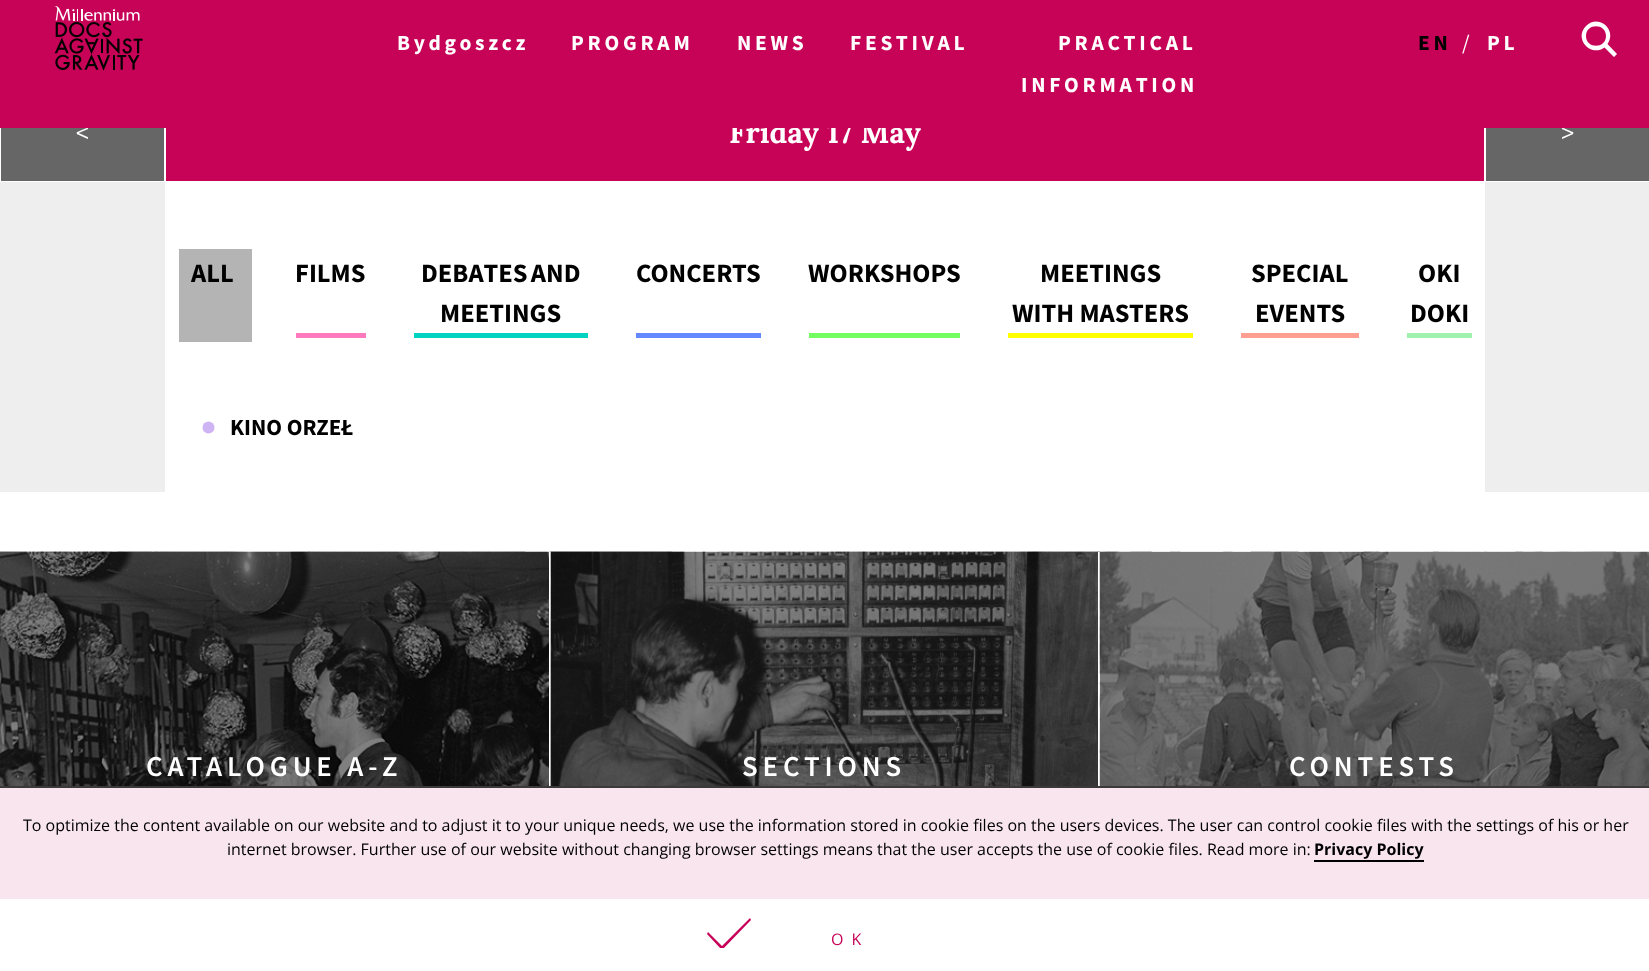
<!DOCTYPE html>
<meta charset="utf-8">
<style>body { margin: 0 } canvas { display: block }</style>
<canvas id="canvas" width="1649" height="971"></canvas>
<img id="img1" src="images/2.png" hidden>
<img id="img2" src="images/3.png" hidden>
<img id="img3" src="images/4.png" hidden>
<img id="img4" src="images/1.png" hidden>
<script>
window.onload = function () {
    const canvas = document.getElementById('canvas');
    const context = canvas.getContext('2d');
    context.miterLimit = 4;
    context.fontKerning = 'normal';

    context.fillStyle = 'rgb(255, 255, 255)';
    context.fillRect(0, 0, 1649, 971);
    context.fillStyle = 'rgb(102, 102, 102)';
    context.fillRect(1, 128, 163, 53);
    context.fillStyle = 'rgb(199, 3, 88)';
    context.fillRect(166, 128, 1318, 53);
    context.fillStyle = 'rgb(102, 102, 102)';
    context.fillRect(1486, 128, 163, 53);
    context.fillStyle = 'rgb(238, 238, 238)';
    context.fillRect(0, 182, 165, 310);
    context.fillStyle = 'rgb(180, 180, 180)';
    context.fillRect(179, 254, 68, 83);
    context.save();
    context.beginPath();
    context.rect(179, 230, 1293, 132);
    context.clip();
    context.strokeStyle = 'rgb(180, 180, 180)';
    context.lineWidth = 5;
    context.strokeRect(176.5, 251.5, 73, 88);
    context.restore();
    context.fillStyle = 'rgb(255, 122, 188)';
    context.fillRect(296, 333, 70, 5);
    context.fillStyle = 'rgb(0, 212, 193)';
    context.fillRect(414, 333, 174, 5);
    context.fillStyle = 'rgb(100, 136, 255)';
    context.fillRect(636, 333, 125, 5);
    context.fillStyle = 'rgb(114, 255, 97)';
    context.fillRect(809, 333, 151, 5);
    context.fillStyle = 'rgb(255, 255, 0)';
    context.fillRect(1008, 333, 185, 5);
    context.fillStyle = 'rgb(255, 159, 146)';
    context.fillRect(1241, 333, 118, 5);
    context.fillStyle = 'rgb(160, 242, 174)';
    context.fillRect(1407, 333, 65, 5);
    context.fillStyle = 'rgb(206, 180, 242)';
    context.beginPath();
    context.arc(208.5, 427.5, 6, 0, 2 * Math.PI);
    context.fill();
    context.fillStyle = 'rgb(238, 238, 238)';
    context.fillRect(1485, 182, 164, 310);
    context.drawImage(document.getElementById('img1'), 0, 551, 551, 235);
    context.fillStyle = 'rgb(255, 255, 255)';
    context.fillRect(549, 552, 2, 234);
    context.drawImage(document.getElementById('img2'), 550, 551, 550, 235);
    context.fillRect(1098, 552, 2, 234);
    context.drawImage(document.getElementById('img3'), 1099, 551, 550, 235);
    context.fillStyle = 'rgb(248, 229, 238)';
    context.fillRect(0, 788, 1649, 111);
    context.fillStyle = 'rgb(59, 57, 57)';
    context.fillRect(0, 786, 1649, 2);
    context.fillStyle = 'rgb(0, 0, 0)';
    context.fillRect(1314, 860, 110, 2);
    context.save();
    context.beginPath();
    context.rect(707, 918, 45, 30);
    context.clip();
    context.fillStyle = 'rgb(199, 3, 88)';
    context.beginPath();
    context.moveTo(723, 949);
    context.lineTo(721, 949);
    context.lineTo(707, 934);
    context.lineTo(708, 932);
    context.lineTo(722, 946);
    context.lineTo(750, 918);
    context.lineTo(751, 920);
    context.closePath();
    context.fill();
    context.restore();
    context.font = '25px Lora';
    context.fillStyle = 'rgb(255, 255, 255)';
    context.fillText('<', 76, 141);
    context.font = 'bold 29.75px Lora';
    context.fillText('Friday 17 May', 729, 143);
    context.font = '25px Lora';
    context.fillText('>', 1561, 141);
    context.fillStyle = 'rgb(199, 3, 88)';
    context.fillRect(0, 0, 1649, 128);
    context.fillStyle = 'rgb(255, 255, 255)';
    context.beginPath();
    context.moveTo(1617, 54);
    context.lineTo(1607.5, 44);
    context.bezierCurveTo(1617.5, 30, 1598.5, 13.5, 1586, 26);
    context.bezierCurveTo(1573.5, 38.5, 1590.5, 57.5, 1604.5, 47.5);
    context.lineTo(1614, 57);
    context.closePath();
    context.moveTo(1586, 36);
    context.bezierCurveTo(1586, 23, 1606, 23, 1606, 36);
    context.bezierCurveTo(1606, 49, 1586, 49, 1586, 36);
    context.closePath();
    context.fill();
    context.letterSpacing = '3.75px';
    context.font = 'bold 21.5px Source Sans Pro';
    context.fillText('PL', 1487, 50);
    context.font = '21.5px Source Sans Pro';
    context.fillText('/', 1462, 50);
    context.font = 'bold 21.5px Source Sans Pro';
    context.fillStyle = 'rgb(0, 0, 0)';
    context.fillText('EN', 1418, 50);
    context.drawImage(document.getElementById('img4'), 54, 6, 89, 65);
    context.fillStyle = 'rgb(255, 255, 255)';
    context.fillText('INFORMATION', 1021, 92);
    context.fillText('PRACTICAL', 1058, 50);
    context.fillText('FESTIVAL', 850, 50);
    context.fillText('NEWS', 737, 50);
    context.fillText('PROGRAM', 571, 50);
    context.fillText('Bydgoszcz', 397, 50);
    context.letterSpacing = '0px';
    context.font = 'bold 26.5px Source Sans Pro';
    context.fillStyle = 'rgb(0, 0, 0)';
    context.fillText('ALL', 191, 282);
    context.fillText('FILMS', 295, 282);
    context.wordSpacing = '-2px';
    context.fillText('DEBATES AND', 421, 282);
    context.wordSpacing = '0px';
    context.fillText('MEETINGS', 440, 322);
    context.fillText('CONCERTS', 636, 282);
    context.fillText('WORKSHOPS', 808, 282);
    context.fillText('MEETINGS', 1040, 282);
    context.fillText('WITH MASTERS', 1012, 322);
    context.fillText('SPECIAL', 1251, 282);
    context.fillText('EVENTS', 1255, 322);
    context.fillText('OKI', 1418, 282);
    context.fillText('DOKI', 1410, 322);
    context.font = 'bold 23px Source Sans Pro';
    context.fillText('KINO ORZEŁ', 230, 435);
    context.letterSpacing = '4.9px';
    context.font = '600 28.75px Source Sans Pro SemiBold';
    context.fillStyle = 'rgb(255, 255, 255)';
    context.fillText('CATALOGUE A-Z', 146, 776);
    context.fillText('SECTIONS', 742, 776);
    context.fillText('CONTESTS', 1289, 776);
    context.letterSpacing = '0px';
    context.font = '16px Open Sans';
    context.fillStyle = 'rgb(0, 0, 0)';
    context.fillText('To optimize the content available on our website and to adjust it to your unique needs, we use the information stored in cookie files on the users devices. The user can control cookie files with the settings of his or her', 23, 831);
    context.fillText('internet browser. Further use of our website without changing browser settings means that the user accepts the use of cookie files. Read more in:', 227, 855);
    context.font = 'bold 16px Open Sans';
    context.fillText('Privacy Policy', 1314, 855);
    context.letterSpacing = '8px';
    context.font = '16px Open Sans';
    context.fillStyle = 'rgb(199, 3, 88)';
    context.fillText('OK', 831, 945);
};
</script>
